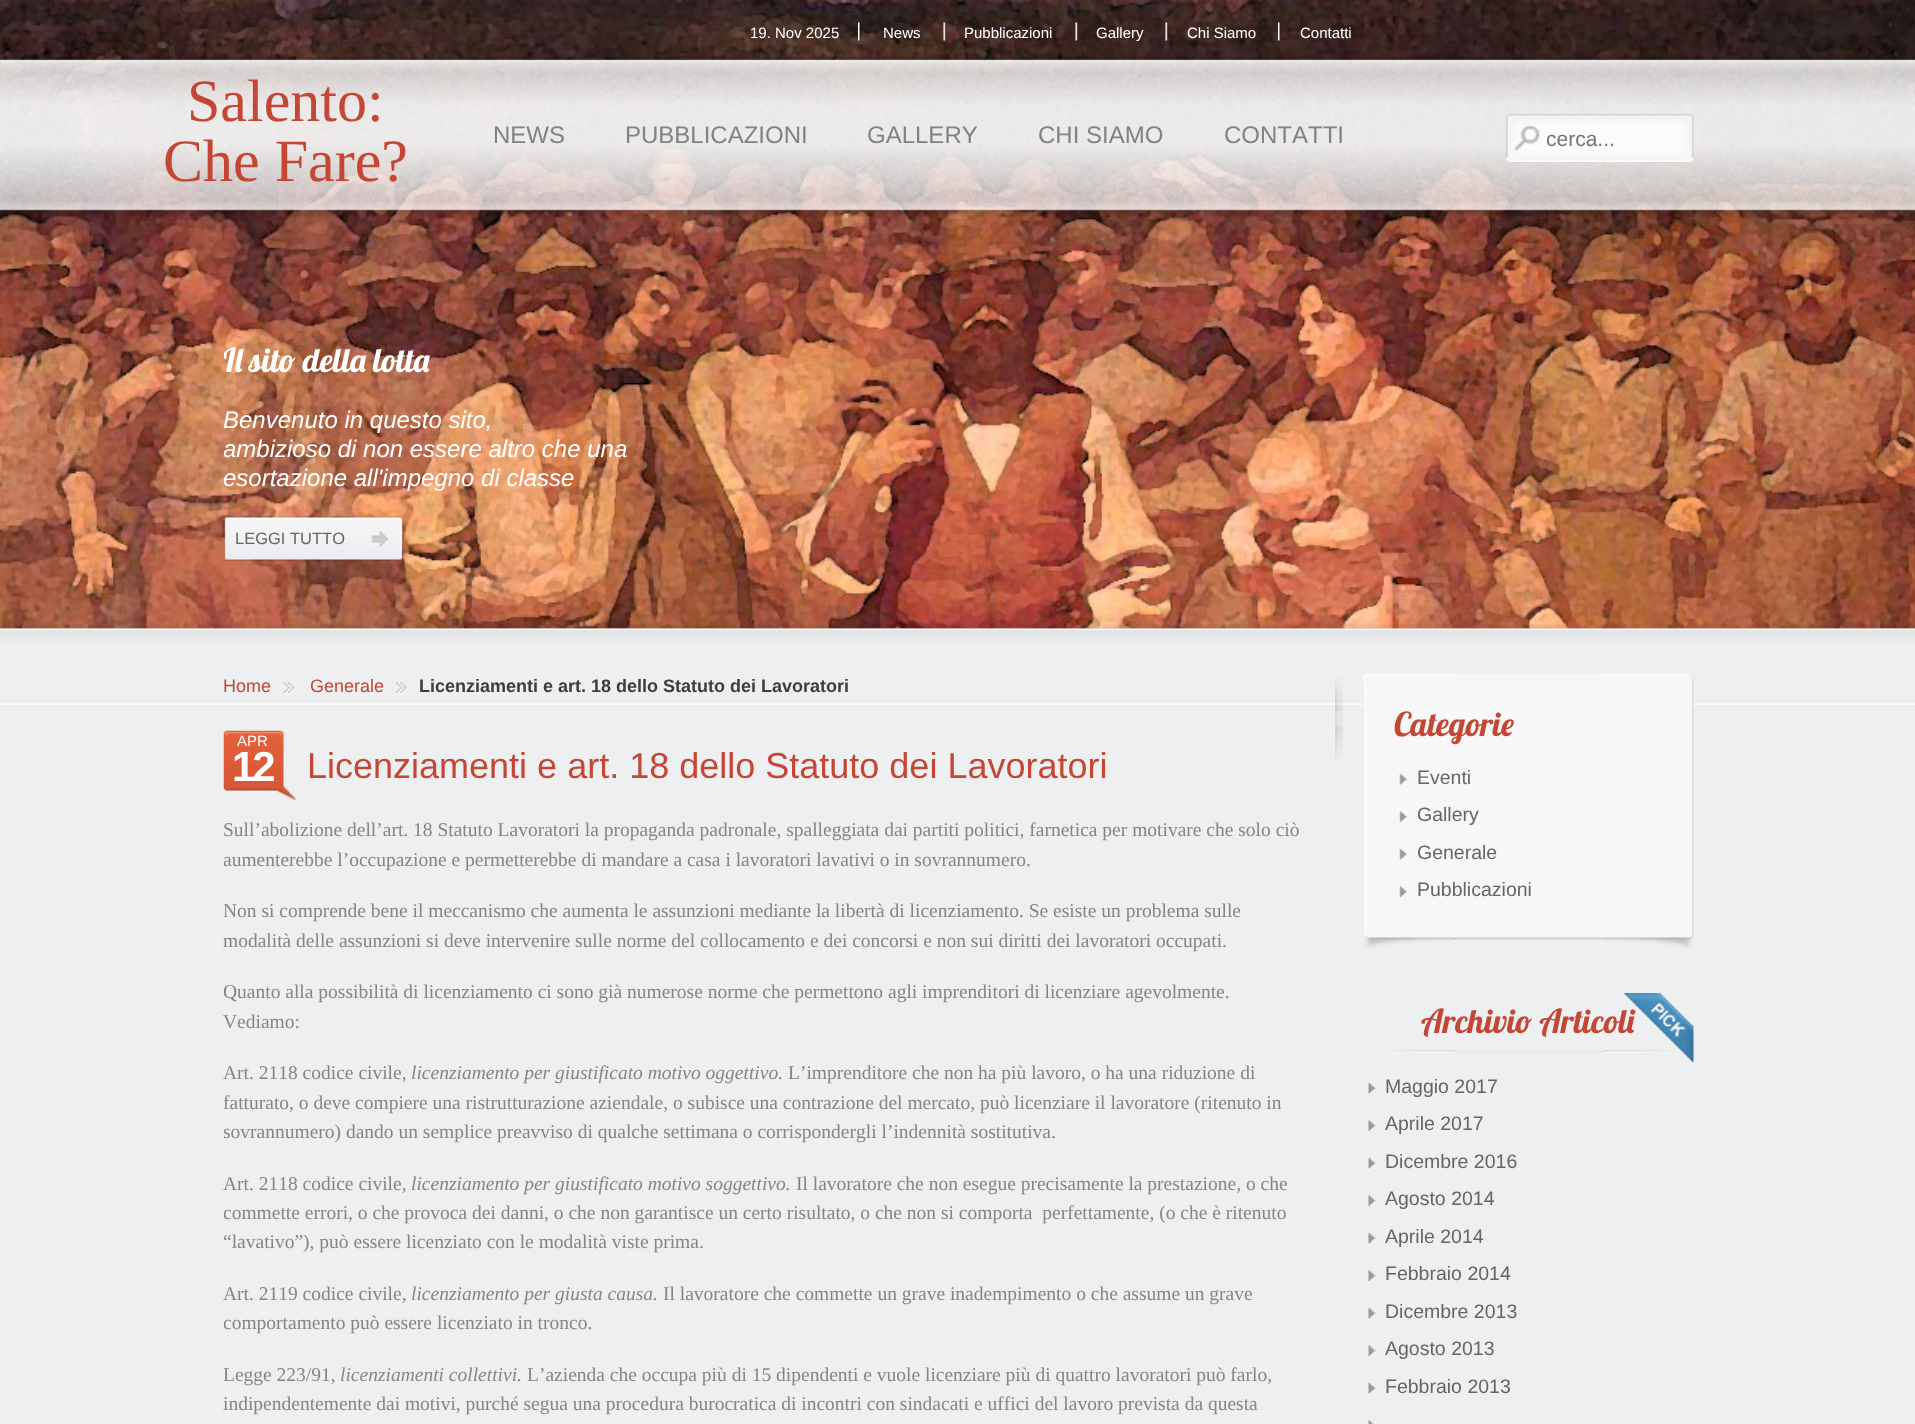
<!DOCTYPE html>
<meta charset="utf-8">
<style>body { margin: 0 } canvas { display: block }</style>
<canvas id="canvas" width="1915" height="1424"></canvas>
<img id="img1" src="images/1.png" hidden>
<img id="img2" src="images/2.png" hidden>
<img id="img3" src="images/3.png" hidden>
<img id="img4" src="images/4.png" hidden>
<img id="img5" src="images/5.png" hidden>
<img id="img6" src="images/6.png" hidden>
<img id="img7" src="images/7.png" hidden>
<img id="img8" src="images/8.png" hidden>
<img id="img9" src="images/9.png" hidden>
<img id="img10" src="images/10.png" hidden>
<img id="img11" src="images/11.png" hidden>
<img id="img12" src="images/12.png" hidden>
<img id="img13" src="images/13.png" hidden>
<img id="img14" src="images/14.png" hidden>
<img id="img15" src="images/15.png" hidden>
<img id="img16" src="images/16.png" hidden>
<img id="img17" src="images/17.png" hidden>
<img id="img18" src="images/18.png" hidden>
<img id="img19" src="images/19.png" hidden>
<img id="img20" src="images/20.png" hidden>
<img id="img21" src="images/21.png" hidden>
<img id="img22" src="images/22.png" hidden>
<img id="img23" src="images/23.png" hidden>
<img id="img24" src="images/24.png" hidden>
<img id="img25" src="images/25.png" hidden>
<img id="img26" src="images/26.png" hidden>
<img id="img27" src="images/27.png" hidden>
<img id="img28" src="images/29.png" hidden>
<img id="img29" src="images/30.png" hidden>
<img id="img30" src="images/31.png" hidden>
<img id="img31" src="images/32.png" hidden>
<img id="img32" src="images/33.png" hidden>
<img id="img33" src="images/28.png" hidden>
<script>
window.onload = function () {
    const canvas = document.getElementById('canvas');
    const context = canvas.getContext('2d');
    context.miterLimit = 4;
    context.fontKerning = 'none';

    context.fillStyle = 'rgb(255, 255, 255)';
    context.fillRect(0, 0, 1915, 1424);
    context.drawImage(document.getElementById('img1'), 0, 628, 1915, 1);
    context.drawImage(document.getElementById('img2'), 0, 0, 1915, 629);
    context.drawImage(document.getElementById('img3'), 0, 56, 1915, 161);
    context.drawImage(document.getElementById('img4'), 858, 22, 3, 20);
    context.drawImage(document.getElementById('img5'), 943, 22, 4, 20);
    context.drawImage(document.getElementById('img6'), 1075, 22, 4, 20);
    context.drawImage(document.getElementById('img7'), 1165, 22, 4, 20);
    context.drawImage(document.getElementById('img8'), 1278, 22, 3, 20);
    context.drawImage(document.getElementById('img9'), 1506, 114, 188, 48);
    context.drawImage(document.getElementById('img10'), 1514, 125, 26, 26);
    context.drawImage(document.getElementById('img11'), 0, 624, 1915, 5);
    context.drawImage(document.getElementById('img12'), 223, 516, 181, 45);
    context.fillStyle = 'rgb(238, 239, 240)';
    context.fillRect(0, 705, 1915, 719);
    context.drawImage(document.getElementById('img13'), 0, 628, 1915, 77);
    context.drawImage(document.getElementById('img14'), 283, 682, 11, 13);
    context.drawImage(document.getElementById('img15'), 396, 682, 11, 13);
    context.drawImage(document.getElementById('img16'), 223, 730, 73, 70);
    context.drawImage(document.getElementById('img17'), 1334, 683, 9, 77);
    context.drawImage(document.getElementById('img18'), 1334, 677, 9, 77);
    context.drawImage(document.getElementById('img19'), 1363, 673, 92, 8);
    context.drawImage(document.getElementById('img20'), 1603, 673, 91, 8);
    context.fillStyle = 'rgb(247, 247, 248)';
    context.fillRect(1455, 674, 148, 7);
    context.drawImage(document.getElementById('img21'), 1363, 681, 8, 252);
    context.drawImage(document.getElementById('img22'), 1686, 681, 8, 252);
    context.fillRect(1371, 681, 315, 252);
    context.drawImage(document.getElementById('img23'), 1399, 773, 8, 13);
    context.drawImage(document.getElementById('img24'), 1399, 811, 8, 12);
    context.drawImage(document.getElementById('img23'), 1399, 848, 8, 13);
    context.drawImage(document.getElementById('img24'), 1399, 886, 8, 12);
    context.drawImage(document.getElementById('img25'), 1363, 933, 92, 15);
    context.drawImage(document.getElementById('img26'), 1603, 933, 91, 15);
    context.drawImage(document.getElementById('img27'), 1453, 933, 151, 7);
    context.drawImage(document.getElementById('img28'), 1387, 1050, 68, 3);
    context.drawImage(document.getElementById('img29'), 1603, 1050, 70, 3);
    context.fillStyle = 'rgba(224, 224, 224, 0.4)';
    context.fillRect(1453, 1050, 151, 3);
    context.drawImage(document.getElementById('img30'), 1368, 1082, 8, 13);
    context.drawImage(document.getElementById('img31'), 1368, 1120, 8, 13);
    context.drawImage(document.getElementById('img30'), 1368, 1157, 8, 13);
    context.drawImage(document.getElementById('img31'), 1368, 1195, 8, 13);
    context.drawImage(document.getElementById('img30'), 1368, 1232, 8, 13);
    context.drawImage(document.getElementById('img31'), 1368, 1270, 8, 13);
    context.drawImage(document.getElementById('img30'), 1368, 1307, 8, 13);
    context.drawImage(document.getElementById('img31'), 1368, 1345, 8, 13);
    context.drawImage(document.getElementById('img30'), 1368, 1382, 8, 13);
    context.drawImage(document.getElementById('img32'), 1368, 1420, 6, 4);
    context.font = '15px Liberation Sans';
    context.fillStyle = 'rgb(255, 255, 255)';
    context.fillText('19. Nov 2025', 750, 38);
    context.fillText('News', 883, 38);
    context.fillText('Pubblicazioni', 964, 38);
    context.fillText('Gallery', 1096, 38);
    context.fillText('Chi Siamo', 1187, 38);
    context.fillText('Contatti', 1300, 38);
    context.font = '60px Liberation Serif';
    context.fillStyle = 'rgb(196, 71, 53)';
    context.fillText('Salento:', 187, 121);
    context.fillText('Che Fare?', 163, 181);
    context.font = '24px Liberation Sans';
    context.fillStyle = 'rgb(127, 131, 132)';
    context.fillText('NEWS', 493, 143);
    context.fillText('PUBBLICAZIONI', 625, 143);
    context.fillText('GALLERY', 867, 143);
    context.fillText('CHI SIAMO', 1038, 143);
    context.fillText('CONTATTI', 1224, 143);
    context.save();
    context.beginPath();
    context.rect(1547, 126, 114, 24);
    context.clip();
    context.font = '21px Liberation Sans';
    context.fillStyle = 'rgb(117, 117, 117)';
    context.fillText('cerca...', 1546, 146);
    context.restore();
    context.save();
    context.beginPath();
    context.rect(224, 255, 1470, 329);
    context.clip();
    context.font = '33px Lobster';
    context.fillStyle = 'rgb(255, 255, 255)';
    context.fillText('Il sito della lotta', 223, 372);
    context.restore();
    context.font = 'italic 24px Liberation Sans';
    context.fillStyle = 'rgb(255, 255, 255)';
    context.fillText('Benvenuto in questo sito,', 223, 428);
    context.save();
    context.beginPath();
    context.rect(224, 255, 1470, 329);
    context.clip();
    context.fillText('ambizioso di non essere altro che una', 223, 457);
    context.fillText('esortazione all\'impegno di classe', 223, 486);
    context.restore();
    context.font = '16.5px Liberation Sans';
    context.fillStyle = 'rgb(100, 101, 102)';
    context.fillText('LEGGI TUTTO', 235, 544);
    context.font = '18px Liberation Sans';
    context.fillStyle = 'rgb(196, 71, 53)';
    context.fillText('Home', 223, 692);
    context.fillText('Generale', 310, 692);
    context.font = 'bold 18px Liberation Sans';
    context.fillStyle = 'rgb(60, 61, 62)';
    context.fillText('Licenziamenti e art. 18 dello Statuto dei Lavoratori', 419, 692);
    context.font = '15px Liberation Sans';
    context.fillStyle = 'rgb(255, 255, 255)';
    context.fillText('APR', 237, 746);
    context.letterSpacing = '-3px';
    context.font = 'bold 42px Liberation Sans';
    context.fillText('12', 232, 781);
    context.letterSpacing = '0px';
    context.font = '36px Liberation Sans';
    context.fillStyle = 'rgb(196, 71, 53)';
    context.fillText('Licenziamenti e art. 18 dello Statuto dei Lavoratori', 307, 778);
    context.font = '19.5px Liberation Serif';
    context.fillStyle = 'rgb(133, 133, 134)';
    context.fillText('Sull’abolizione dell’art. 18 Statuto Lavoratori la propaganda padronale, spalleggiata dai partiti politici, farnetica per motivare che solo ciò', 223, 836);
    context.save();
    context.beginPath();
    context.rect(224, 816, 1080, 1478);
    context.clip();
    context.fillText('aumenterebbe l’occupazione e permetterebbe di mandare a casa i lavoratori lavativi o in sovrannumero.', 223, 866);
    context.restore();
    context.fillText('Non si comprende bene il meccanismo che aumenta le assunzioni mediante la libertà di licenziamento. Se esiste un problema sulle', 223, 917);
    context.fillText('modalità delle assunzioni si deve intervenire sulle norme del collocamento e dei concorsi e non sui diritti dei lavoratori occupati.', 223, 947);
    context.save();
    context.beginPath();
    context.rect(224, 816, 1080, 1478);
    context.clip();
    context.fillText('Quanto alla possibilità di licenziamento ci sono già numerose norme che permettono agli imprenditori di licenziare agevolmente.', 223, 998);
    context.restore();
    context.fillText('Vediamo:', 223, 1028);
    context.fillText('Art. 2118 codice civile,', 223, 1079);
    context.font = 'italic 19.5px Liberation Serif';
    context.fillText('licenziamento per giustificato motivo oggettivo.', 411, 1079);
    context.font = '19.5px Liberation Serif';
    context.fillText('L’imprenditore che non ha più lavoro, o ha una riduzione di', 788, 1079);
    context.fillText('fatturato, o deve compiere una ristrutturazione aziendale, o subisce una contrazione del mercato, può licenziare il lavoratore (ritenuto in', 223, 1109);
    context.save();
    context.beginPath();
    context.rect(224, 816, 1080, 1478);
    context.clip();
    context.fillText('sovrannumero) dando un semplice preavviso di qualche settimana o corrispondergli l’indennità sostitutiva.', 223, 1138);
    context.restore();
    context.fillText('Art. 2118 codice civile,', 223, 1190);
    context.font = 'italic 19.5px Liberation Serif';
    context.fillText('licenziamento per giustificato motivo soggettivo.', 411, 1190);
    context.font = '19.5px Liberation Serif';
    context.fillText('Il lavoratore che non esegue precisamente la prestazione, o che', 796, 1190);
    context.save();
    context.beginPath();
    context.rect(224, 816, 1080, 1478);
    context.clip();
    context.fillText('commette errori, o che provoca dei danni, o che non garantisce un certo risultato, o che non si comporta  perfettamente, (o che è ritenuto', 223, 1219);
    context.fillText('“lavativo”), può essere licenziato con le modalità viste prima.', 223, 1248);
    context.restore();
    context.fillText('Art. 2119 codice civile,', 223, 1300);
    context.font = 'italic 19.5px Liberation Serif';
    context.fillText('licenziamento per giusta causa.', 411, 1300);
    context.font = '19.5px Liberation Serif';
    context.fillText('Il lavoratore che commette un grave inadempimento o che assume un grave', 663, 1300);
    context.save();
    context.beginPath();
    context.rect(224, 816, 1080, 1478);
    context.clip();
    context.fillText('comportamento può essere licenziato in tronco.', 223, 1329);
    context.restore();
    context.fillText('Legge 223/91,', 223, 1381);
    context.font = 'italic 19.5px Liberation Serif';
    context.fillText('licenziamenti collettivi.', 340, 1381);
    context.font = '19.5px Liberation Serif';
    context.fillText('L’azienda che occupa più di 15 dipendenti e vuole licenziare più di quattro lavoratori può farlo,', 527, 1381);
    context.fillText('indipendentemente dai motivi, purché segua una procedura burocratica di incontri con sindacati e uffici del lavoro prevista da questa', 223, 1410);
    context.font = '33px Lobster';
    context.fillStyle = 'rgb(196, 71, 53)';
    context.fillText('Categorie', 1394, 736);
    context.font = '19.5px Liberation Sans';
    context.fillStyle = 'rgb(100, 101, 102)';
    context.fillText('Eventi', 1417, 784);
    context.fillText('Gallery', 1417, 821);
    context.fillText('Generale', 1417, 859);
    context.fillText('Pubblicazioni', 1417, 896);
    context.font = '33px Lobster';
    context.fillStyle = 'rgb(196, 71, 53)';
    context.fillText('Archivio Articoli', 1421, 1033);
    context.drawImage(document.getElementById('img33'), 1624, 993, 70, 69);
    context.font = '19.5px Liberation Sans';
    context.fillStyle = 'rgb(100, 101, 102)';
    context.fillText('Maggio 2017', 1385, 1093);
    context.fillText('Aprile 2017', 1385, 1130);
    context.fillText('Dicembre 2016', 1385, 1168);
    context.fillText('Agosto 2014', 1385, 1205);
    context.fillText('Aprile 2014', 1385, 1243);
    context.fillText('Febbraio 2014', 1385, 1280);
    context.fillText('Dicembre 2013', 1385, 1318);
    context.fillText('Agosto 2013', 1385, 1355);
    context.fillText('Febbraio 2013', 1385, 1393);
};
</script>
